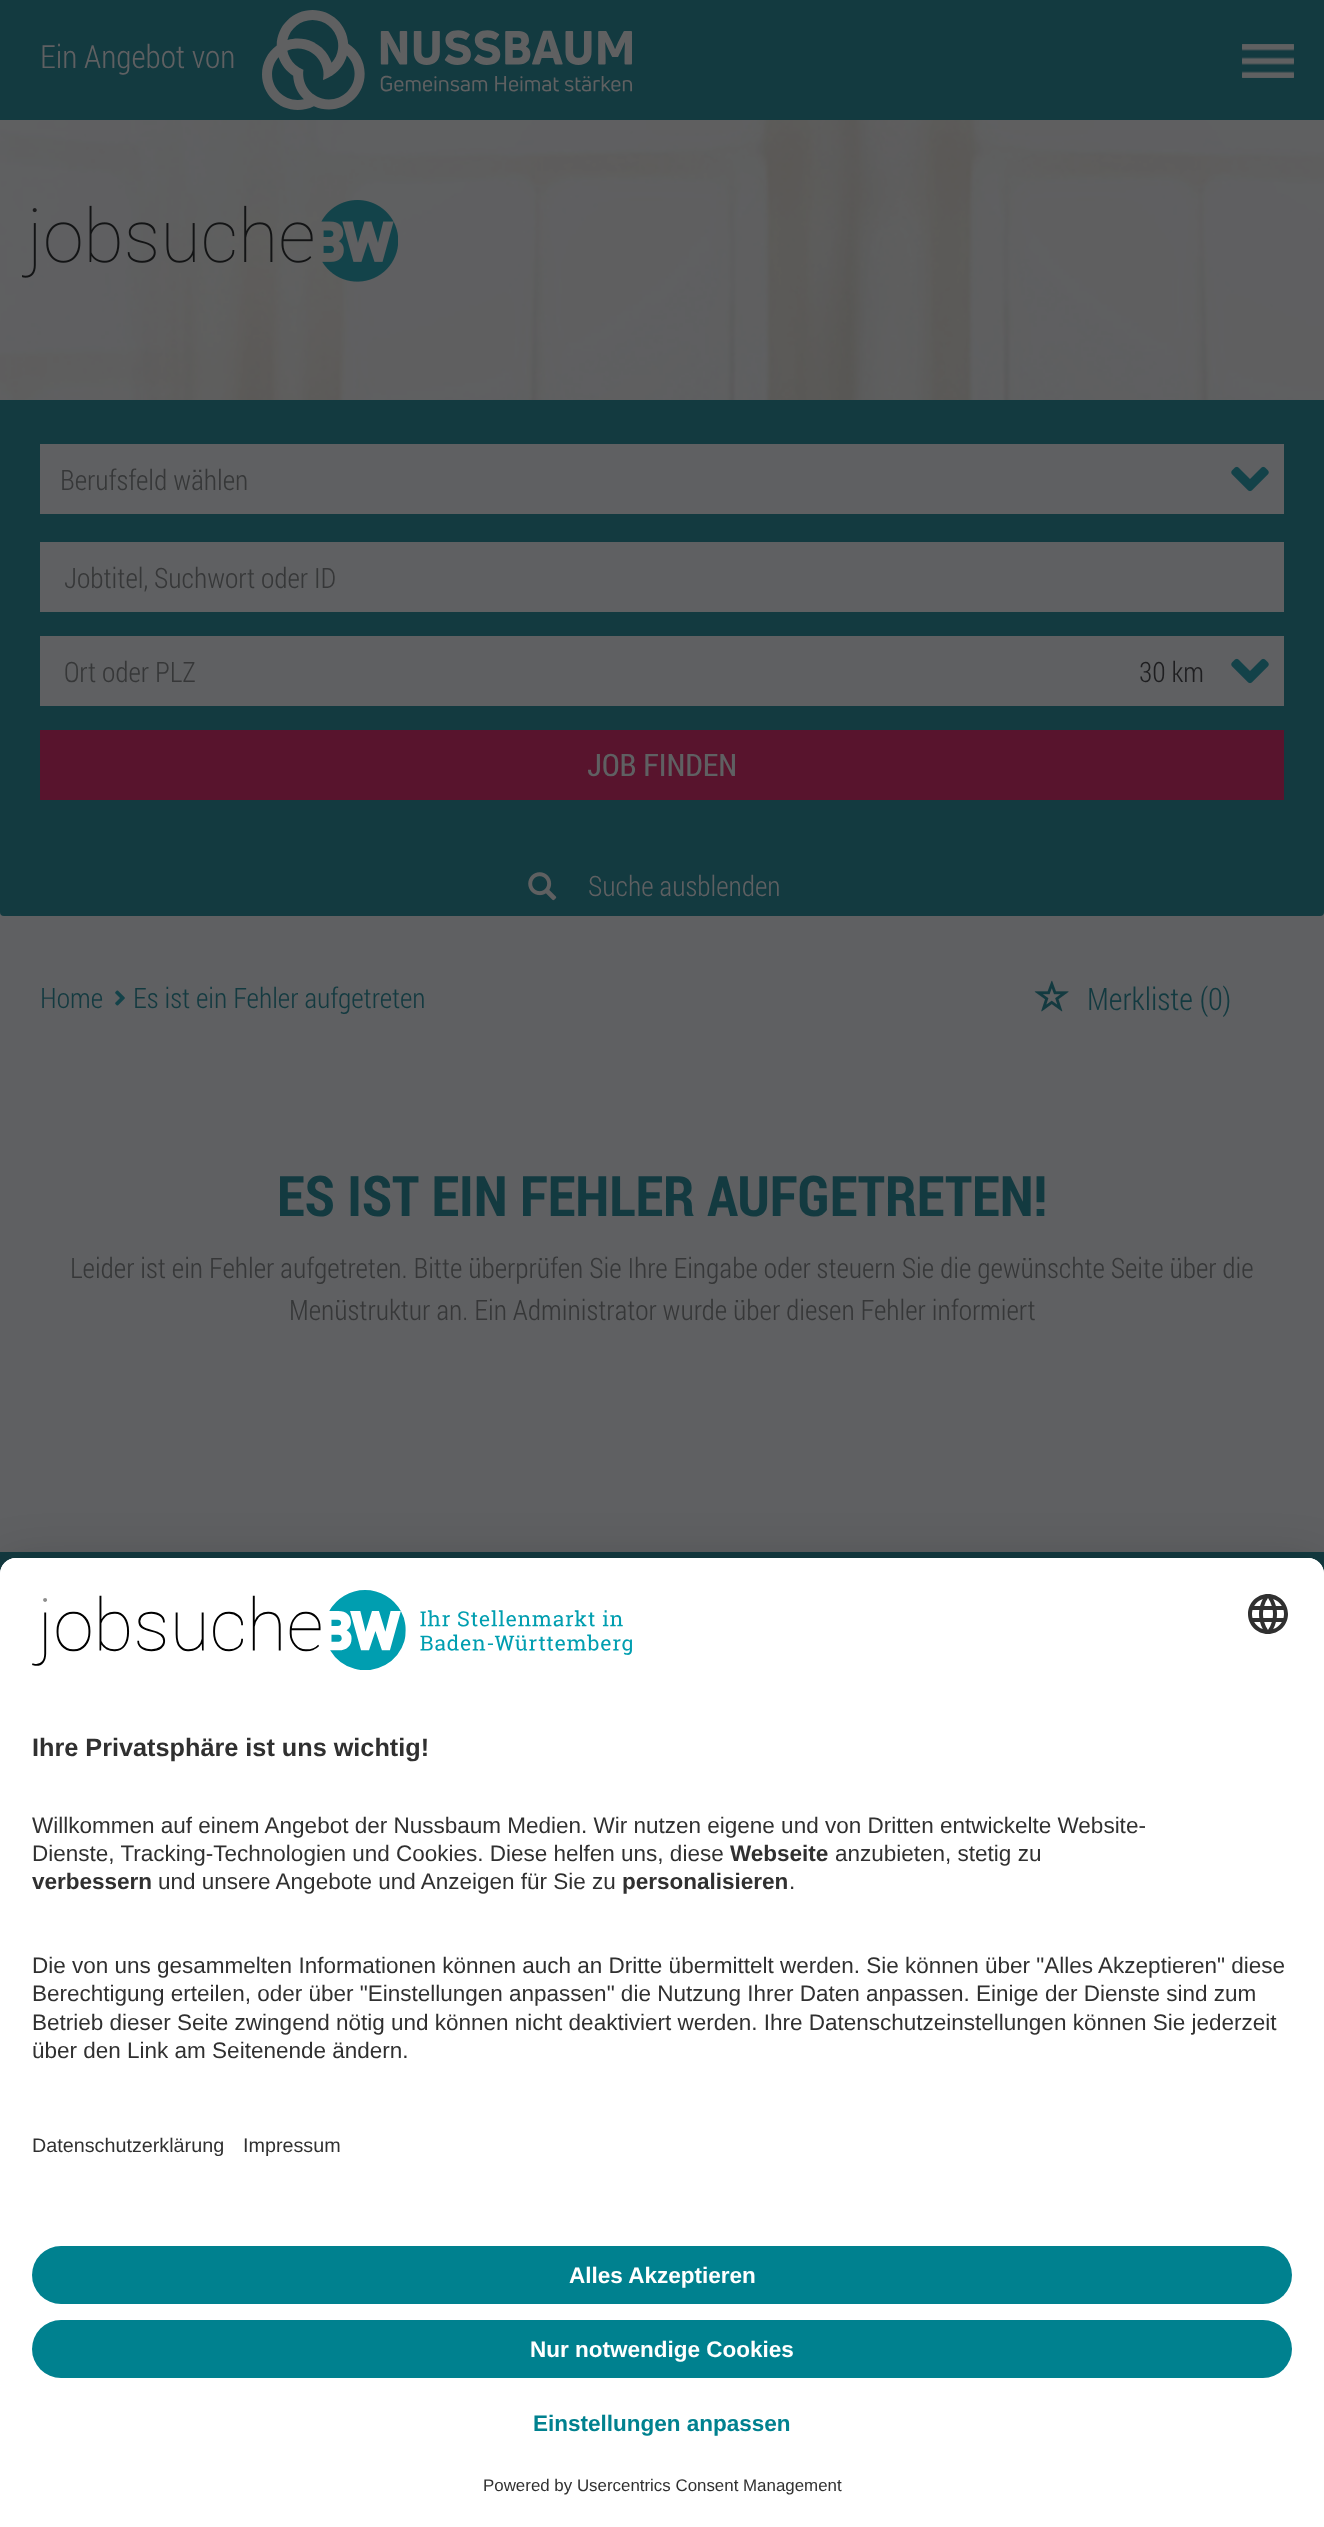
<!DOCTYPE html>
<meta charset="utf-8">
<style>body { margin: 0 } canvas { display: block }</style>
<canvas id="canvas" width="1324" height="2527"></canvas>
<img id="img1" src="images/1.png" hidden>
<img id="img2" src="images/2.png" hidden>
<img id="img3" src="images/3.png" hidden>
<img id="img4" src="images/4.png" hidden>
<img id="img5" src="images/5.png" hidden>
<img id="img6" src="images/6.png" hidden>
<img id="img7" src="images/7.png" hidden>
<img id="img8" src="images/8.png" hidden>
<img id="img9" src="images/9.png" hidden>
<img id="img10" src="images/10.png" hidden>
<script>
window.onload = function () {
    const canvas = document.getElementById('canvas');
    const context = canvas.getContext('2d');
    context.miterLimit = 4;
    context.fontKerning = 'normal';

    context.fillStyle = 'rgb(95, 96, 98)';
    context.fillRect(0, 0, 1324, 2527);
    context.drawImage(document.getElementById('img1'), 0, 120, 1324, 280);
    context.fillStyle = 'rgb(19, 58, 64)';
    context.fillRect(0, 0, 1324, 120);
    context.drawImage(document.getElementById('img2'), 262, 10, 370, 100);
    context.drawImage(document.getElementById('img3'), 1242, 44, 52, 34);
    context.drawImage(document.getElementById('img4'), 22, 200, 376, 82);
    context.fillRect(0, 400, 1324, 444);
    context.fillStyle = 'rgb(95, 96, 98)';
    context.fillRect(40, 444, 1244, 70);
    context.drawImage(document.getElementById('img5'), 1231, 466, 38, 26);
    context.fillRect(40, 542, 1244, 70);
    context.fillRect(40, 636, 1244, 70);
    context.drawImage(document.getElementById('img5'), 1231, 658, 38, 26);
    context.fillStyle = 'rgb(88, 20, 45)';
    context.fillRect(40, 730, 1244, 70);
    context.fillStyle = 'rgb(19, 58, 64)';
    context.beginPath();
    context.roundRect(0, 844, 1324, 72, [0, 0, 4, 4]);
    context.fill();
    context.drawImage(document.getElementById('img6'), 528, 872, 29, 29);
    context.drawImage(document.getElementById('img7'), 115, 990, 10, 16);
    context.drawImage(document.getElementById('img8'), 1034, 980, 35, 32);
    context.fillRect(0, 1552, 1324, 22);
    context.fillStyle = 'rgba(0, 0, 0, 0.22)';
    context.filter = 'blur(26px)';
    context.beginPath();
    context.roundRect(0, 1568, 1324, 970, 16);
    context.fill();
    context.filter = 'none';
    context.fillStyle = 'rgb(255, 255, 255)';
    context.beginPath();
    context.moveTo(16, 1558);
    context.lineTo(1308, 1558);
    context.bezierCurveTo(1317, 1558, 1324, 1565, 1324, 1574);
    context.lineTo(1324, 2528);
    context.lineTo(0, 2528);
    context.lineTo(0, 1574);
    context.bezierCurveTo(0, 1565, 7, 1558, 16, 1558);
    context.closePath();
    context.fill();
    context.beginPath();
    context.roundRect(0, 1558, 1324, 664, [16, 16, 0, 0]);
    context.fill();
    context.drawImage(document.getElementById('img9'), 32, 1590, 600, 80);
    context.drawImage(document.getElementById('img10'), 1248, 1594, 40, 40);
    context.fillStyle = 'rgb(0, 129, 143)';
    context.beginPath();
    context.roundRect(32, 2246, 1260, 58, 29);
    context.fill();
    context.beginPath();
    context.roundRect(32, 2320, 1260, 58, 29);
    context.fill();
    context.font = '300 32px Roboto Condensed';
    context.fillStyle = 'rgb(95, 96, 98)';
    context.fillText('Ein Angebot von', 40, 68);
    context.font = '300 28px Roboto Condensed';
    context.fillStyle = 'rgb(54, 55, 56)';
    context.fillText('Berufsfeld wählen', 60, 490);
    context.fillText('Jobtitel, Suchwort oder ID', 64, 588);
    context.fillText('Ort oder PLZ', 64, 682);
    context.fillStyle = 'rgb(30, 30, 32)';
    context.fillText('30 km', 1139, 682);
    context.font = '31px Roboto Condensed';
    context.fillStyle = 'rgb(95, 96, 98)';
    context.fillText('JOB FINDEN', 587, 776);
    context.font = '300 28px Roboto Condensed';
    context.fillText('Suche ausblenden', 588, 896);
    context.fillStyle = 'rgb(19, 58, 64)';
    context.fillText('Home', 40, 1008);
    context.fillText('Es ist ein Fehler aufgetreten', 133, 1008);
    context.font = '300 31px Roboto Condensed';
    context.fillText('Merkliste (0)', 1087, 1010);
    context.font = 'bold 56px Roboto Condensed';
    context.fillText('ES IST EIN FEHLER AUFGETRETEN!', 277, 1216);
    context.font = '300 28px Roboto Condensed';
    context.fillStyle = 'rgb(54, 55, 56)';
    context.fillText('Leider ist ein Fehler aufgetreten. Bitte überprüfen Sie Ihre Eingabe oder steuern Sie die gewünschte Seite über die', 70, 1278);
    context.fillText('Menüstruktur an. Ein Administrator wurde über diesen Fehler informiert', 289, 1320);
    context.font = 'bold 25.25px Liberation Sans';
    context.fillStyle = 'rgb(48, 48, 48)';
    context.fillText('Ihre Privatsphäre ist uns wichtig!', 32, 1756);
    context.font = '22.5px Liberation Sans';
    context.fillText('Willkommen auf einem Angebot der Nussbaum Medien. Wir nutzen eigene und von Dritten entwickelte Website-', 32, 1833);
    context.fillText('Dienste, Tracking-Technologien und Cookies. Diese helfen uns, diese', 32, 1861);
    context.font = 'bold 22.5px Liberation Sans';
    context.fillText('Webseite', 730, 1861);
    context.font = '22.5px Liberation Sans';
    context.fillText('anzubieten, stetig zu', 835, 1861);
    context.font = 'bold 22.5px Liberation Sans';
    context.fillText('verbessern', 32, 1889);
    context.font = '22.5px Liberation Sans';
    context.fillText('und unsere Angebote und Anzeigen für Sie zu', 158, 1889);
    context.font = 'bold 22.5px Liberation Sans';
    context.fillText('personalisieren', 622, 1889);
    context.font = '22.5px Liberation Sans';
    context.fillText('.', 789, 1889);
    context.fillText('Die von uns gesammelten Informationen können auch an Dritte übermittelt werden. Sie können über "Alles Akzeptieren" diese', 32, 1973);
    context.fillText('Berechtigung erteilen, oder über "Einstellungen anpassen" die Nutzung Ihrer Daten anpassen. Einige der Dienste sind zum', 32, 2001);
    context.fillText('Betrieb dieser Seite zwingend nötig und können nicht deaktiviert werden. Ihre Datenschutzeinstellungen können Sie jederzeit', 32, 2030);
    context.fillText('über den Link am Seitenende ändern.', 32, 2058);
    context.font = '19.75px Liberation Sans';
    context.fillText('Datenschutzerklärung', 32, 2152);
    context.fillText('Impressum', 243, 2152);
    context.font = 'bold 22.5px Liberation Sans';
    context.fillStyle = 'rgb(255, 255, 255)';
    context.fillText('Alles Akzeptieren', 569, 2283);
    context.fillText('Nur notwendige Cookies', 530, 2357);
    context.fillStyle = 'rgb(0, 129, 143)';
    context.fillText('Einstellungen anpassen', 533, 2431);
    context.font = '16.9px Liberation Sans';
    context.fillStyle = 'rgb(48, 48, 48)';
    context.fillText('Powered by Usercentrics Consent Management', 483, 2491);
};
</script>
